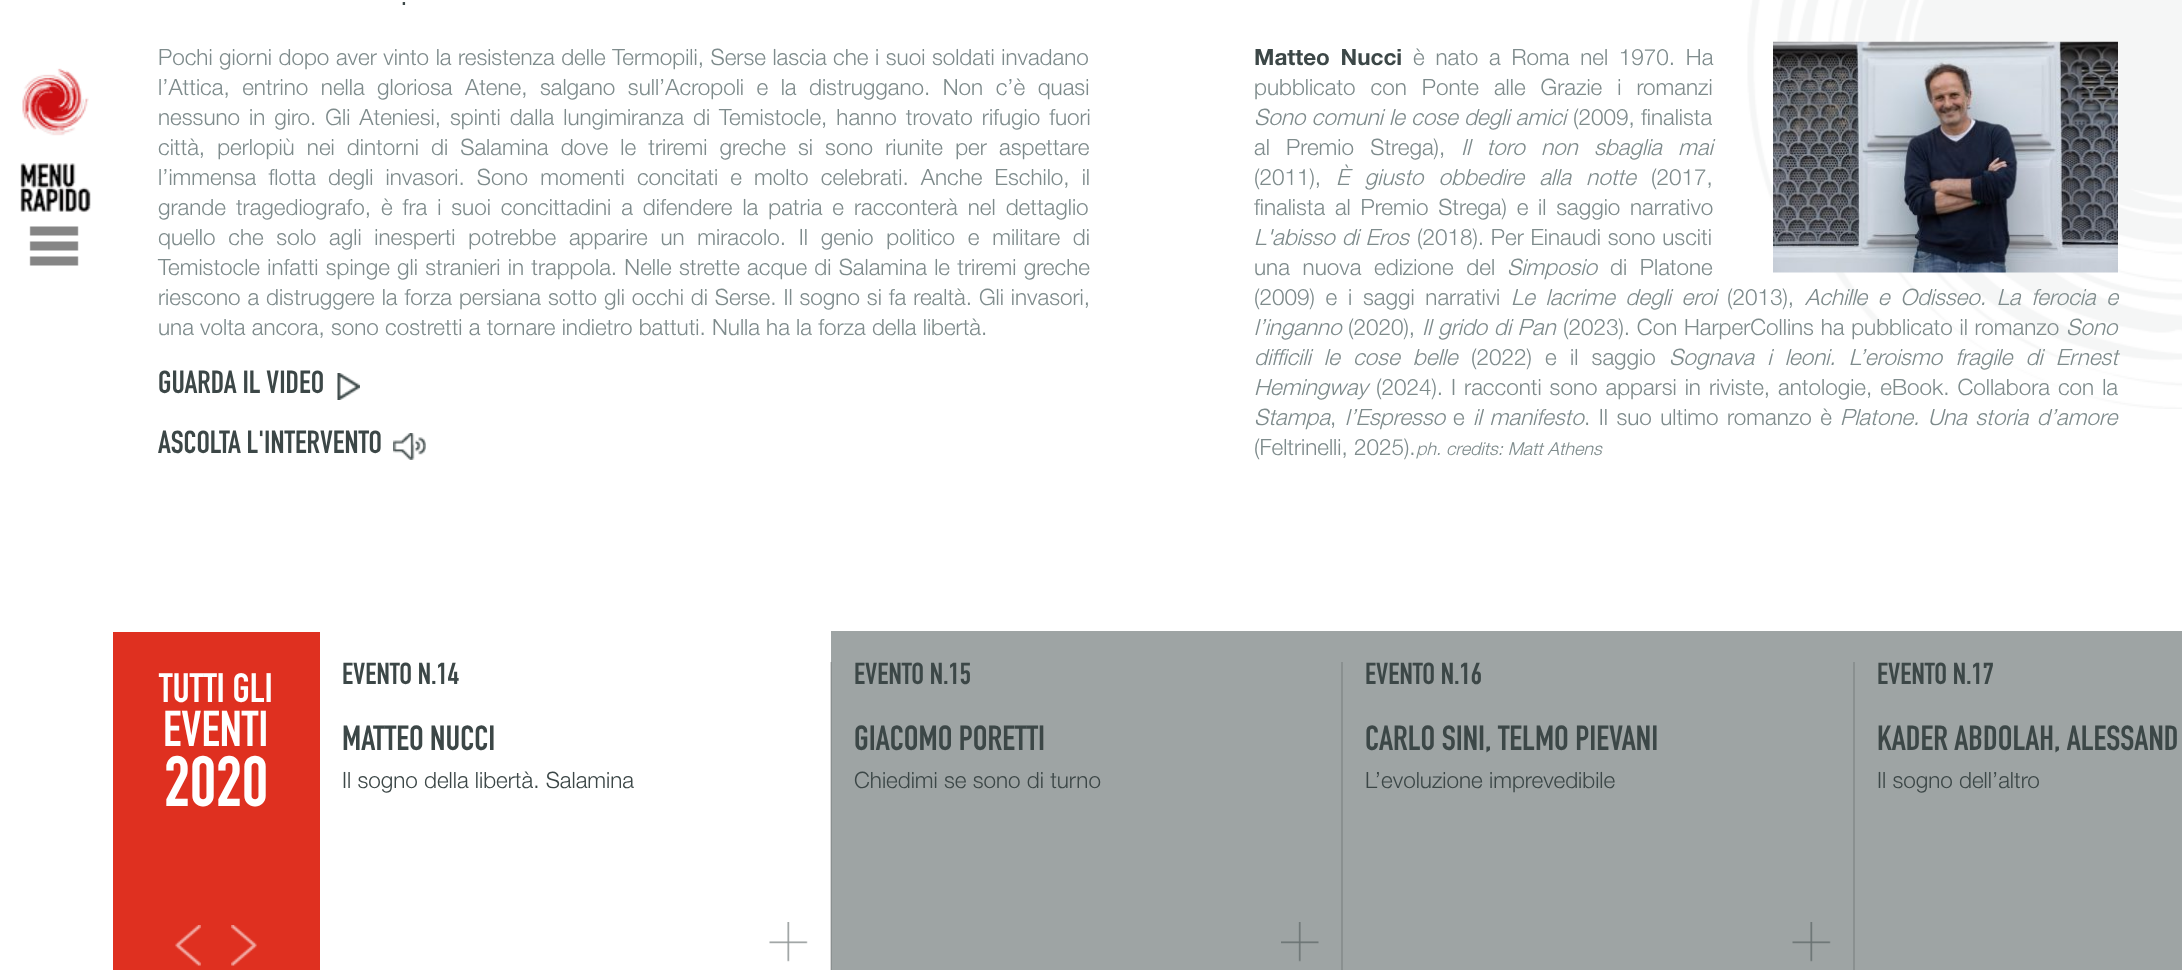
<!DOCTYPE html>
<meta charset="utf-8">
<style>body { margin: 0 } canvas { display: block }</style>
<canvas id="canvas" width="2182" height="970"></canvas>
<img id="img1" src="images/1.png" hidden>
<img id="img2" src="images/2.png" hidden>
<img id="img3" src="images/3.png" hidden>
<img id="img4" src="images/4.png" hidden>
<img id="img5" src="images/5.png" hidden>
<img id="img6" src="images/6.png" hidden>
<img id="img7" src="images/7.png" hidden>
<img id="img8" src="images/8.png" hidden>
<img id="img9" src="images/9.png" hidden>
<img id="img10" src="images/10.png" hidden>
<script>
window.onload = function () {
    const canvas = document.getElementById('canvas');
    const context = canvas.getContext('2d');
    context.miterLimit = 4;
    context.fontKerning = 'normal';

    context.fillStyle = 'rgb(255, 255, 255)';
    context.fillRect(0, 0, 2182, 970);
    context.fillStyle = 'rgb(158, 164, 164)';
    context.fillRect(831, 631, 1351, 339);
    context.drawImage(document.getElementById('img1'), 20, 68, 71, 198);
    context.drawImage(document.getElementById('img2'), 1747, 0, 435, 409);
    context.drawImage(document.getElementById('img3'), 337, 373, 23, 27);
    context.drawImage(document.getElementById('img4'), 393, 433, 33, 27);
    context.drawImage(document.getElementById('img5'), 1773, 41, 345, 232);
    context.fillStyle = 'rgb(223, 48, 32)';
    context.fillRect(113, 632, 207, 338);
    context.drawImage(document.getElementById('img6'), 175, 925, 26, 41);
    context.drawImage(document.getElementById('img7'), 231, 925, 26, 41);
    context.fillStyle = 'rgb(215, 215, 215)';
    context.fillRect(830, 662, 1, 308);
    context.fillStyle = 'rgb(138, 144, 144)';
    context.fillRect(831, 662, 1, 308);
    context.drawImage(document.getElementById('img8'), 769, 922, 39, 40);
    context.fillRect(1341, 662, 2, 308);
    context.drawImage(document.getElementById('img9'), 1281, 922, 38, 40);
    context.fillRect(1853, 662, 2, 308);
    context.drawImage(document.getElementById('img10'), 1792, 922, 39, 40);
    context.font = '300 28px Helvetica Neue';
    context.fillStyle = 'rgb(60, 71, 71)';
    context.fillText('.', 400, 5);
    context.wordSpacing = '0.3px';
    context.font = '300 22.5px Helvetica Neue';
    context.fillStyle = 'rgb(126, 139, 140)';
    context.fillText('Pochi giorni dopo aver vinto la resistenza delle Termopili, Serse lascia che i suoi soldati invadano', 158, 65);
    context.wordSpacing = '6.25px';
    context.fillText('l’Attica, entrino nella gloriosa Atene, salgano sull’Acropoli e la distruggano. Non c’è quasi', 158, 95);
    context.wordSpacing = '2.75px';
    context.fillText('nessuno in giro. Gli Ateniesi, spinti dalla lungimiranza di Temistocle, hanno trovato rifugio fuori', 158, 125);
    context.wordSpacing = '5.9px';
    context.fillText('città, perlopiù nei dintorni di Salamina dove le triremi greche si sono riunite per aspettare', 158, 155);
    context.fillText('l’immensa flotta degli invasori. Sono momenti concitati e molto celebrati. Anche Eschilo, il', 158, 185);
    context.wordSpacing = '3.75px';
    context.fillText('grande tragediografo, è fra i suoi concittadini a difendere la patria e racconterà nel dettaglio', 158, 215);
    context.wordSpacing = '6.5px';
    context.fillText('quello che solo agli inesperti potrebbe apparire un miracolo. Il genio politico e militare di', 158, 245);
    context.wordSpacing = '1px';
    context.fillText('Temistocle infatti spinge gli stranieri in trappola. Nelle strette acque di Salamina le triremi greche', 158, 275);
    context.wordSpacing = '0.7px';
    context.fillText('riescono a distruggere la forza persiana sotto gli occhi di Serse. Il sogno si fa realtà. Gli invasori,', 158, 305);
    context.wordSpacing = '0px';
    context.fillText('una volta ancora, sono costretti a tornare indietro battuti. Nulla ha la forza della libertà.', 158, 335);
    context.font = '31.5px "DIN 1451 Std"';
    context.fillStyle = 'rgb(60, 71, 71)';
    context.fillText('GUARDA IL VIDEO', 158, 393);
    context.fillText('ASCOLTA L\'INTERVENTO', 158, 453);
    context.wordSpacing = '4.5px';
    context.font = 'bold 22.5px Helvetica Neue';
    context.fillText('Matteo Nucci', 1254, 65);
    context.font = '300 22.5px Helvetica Neue';
    context.fillStyle = 'rgb(126, 139, 140)';
    context.fillText('è nato a Roma nel 1970. Ha', 1413, 65);
    context.wordSpacing = '8.75px';
    context.fillText('pubblicato con Ponte alle Grazie i romanzi', 1254, 95);
    context.wordSpacing = '0px';
    context.font = 'italic 300 22.5px Helvetica Neue';
    context.fillText('Sono comuni le cose degli amici', 1254, 125);
    context.font = '300 22.5px Helvetica Neue';
    context.fillText('(2009, finalista', 1573, 125);
    context.wordSpacing = '10px';
    context.fillText('al Premio Strega),', 1254, 155);
    context.font = 'italic 300 22.5px Helvetica Neue';
    context.fillText('Il toro non sbaglia mai', 1461, 155);
    context.wordSpacing = '0px';
    context.font = '300 22.5px Helvetica Neue';
    context.fillText('(2011),', 1254, 185);
    context.wordSpacing = '9px';
    context.font = 'italic 300 22.5px Helvetica Neue';
    context.fillText('È giusto obbedire alla notte', 1336, 185);
    context.wordSpacing = '0px';
    context.font = '300 22.5px Helvetica Neue';
    context.fillText('(2017,', 1651, 185);
    context.wordSpacing = '3.5px';
    context.fillText('finalista al Premio Strega) e il saggio narrativo', 1254, 215);
    context.wordSpacing = '0px';
    context.font = 'italic 300 22.5px Helvetica Neue';
    context.fillText('L\'', 1254, 245);
    context.wordSpacing = '0.5px';
    context.fillText('abisso di Eros', 1272, 245);
    context.font = '300 22.5px Helvetica Neue';
    context.fillText('(2018). Per Einaudi sono usciti', 1417, 245);
    context.wordSpacing = '6.5px';
    context.fillText('una nuova edizione del', 1254, 275);
    context.wordSpacing = '0px';
    context.font = 'italic 300 22.5px Helvetica Neue';
    context.fillText('Simposio', 1507, 275);
    context.wordSpacing = '6.5px';
    context.font = '300 22.5px Helvetica Neue';
    context.fillText('di Platone', 1610, 275);
    context.wordSpacing = '4.5px';
    context.fillText('(2009) e i saggi narrativi', 1254, 305);
    context.font = 'italic 300 22.5px Helvetica Neue';
    context.fillText('Le lacrime degli eroi', 1511, 305);
    context.wordSpacing = '0px';
    context.font = '300 22.5px Helvetica Neue';
    context.fillText('(2013),', 1727, 305);
    context.wordSpacing = '4.5px';
    context.font = 'italic 300 22.5px Helvetica Neue';
    context.fillText('Achille e Odisseo. La ferocia e', 1805, 305);
    context.wordSpacing = '0px';
    context.fillText('l’inganno', 1254, 335);
    context.font = '300 22.5px Helvetica Neue';
    context.fillText('(2020),', 1348, 335);
    context.wordSpacing = '0.5px';
    context.font = 'italic 300 22.5px Helvetica Neue';
    context.fillText('Il grido di Pan', 1422, 335);
    context.font = '300 22.5px Helvetica Neue';
    context.fillText('(2023). Con HarperCollins ha pubblicato il romanzo', 1563, 335);
    context.wordSpacing = '0px';
    context.font = 'italic 300 22.5px Helvetica Neue';
    context.fillText('Sono', 2066, 335);
    context.wordSpacing = '7px';
    context.fillText('difficili le cose belle', 1254, 365);
    context.font = '300 22.5px Helvetica Neue';
    context.fillText('(2022) e il saggio', 1471, 365);
    context.font = 'italic 300 22.5px Helvetica Neue';
    context.fillText('Sognava i leoni. L’eroismo fragile di Ernest', 1669, 365);
    context.wordSpacing = '0px';
    context.fillText('Hemingway', 1254, 395);
    context.wordSpacing = '1.75px';
    context.font = '300 22.5px Helvetica Neue';
    context.fillText('(2024). I racconti sono apparsi in riviste, antologie, eBook. Collabora con la', 1376, 395);
    context.wordSpacing = '0px';
    context.font = 'italic 300 22.5px Helvetica Neue';
    context.fillText('Stampa', 1254, 425);
    context.font = '300 22.5px Helvetica Neue';
    context.fillText(',', 1330, 425);
    context.font = 'italic 300 22.5px Helvetica Neue';
    context.fillText('l’Espresso', 1345, 425);
    context.font = '300 22.5px Helvetica Neue';
    context.fillText('e', 1453, 425);
    context.wordSpacing = '2px';
    context.font = 'italic 300 22.5px Helvetica Neue';
    context.fillText('il manifesto', 1473, 425);
    context.wordSpacing = '2.25px';
    context.font = '300 22.5px Helvetica Neue';
    context.fillText('. Il suo ultimo romanzo è', 1584, 425);
    context.font = 'italic 300 22.5px Helvetica Neue';
    context.fillText('Platone. Una storia d’amore', 1840, 425);
    context.wordSpacing = '0px';
    context.font = '300 22.5px Helvetica Neue';
    context.fillText('(Feltrinelli, 2025).', 1254, 455);
    context.font = 'italic 300 18px Helvetica Neue';
    context.fillText('ph. credits: Matt Athens', 1416, 455);
    context.font = '40.5px "DIN 1451 Std"';
    context.fillStyle = 'rgb(255, 255, 255)';
    context.fillText('TUTTI GLI', 159, 702);
    context.font = '49.5px "DIN 1451 Std"';
    context.fillText('EVENTI', 163, 746);
    context.font = '70px "DIN 1451 Std"';
    context.fillText('2020', 164, 806);
    context.font = '30px "DIN 1451 Std"';
    context.fillStyle = 'rgb(60, 71, 71)';
    context.fillText('EVENTO N.14', 342, 684);
    context.font = '34.5px "DIN 1451 Std"';
    context.fillText('MATTEO NUCCI', 342, 750);
    context.font = '300 22.5px Helvetica Neue';
    context.fillText('Il sogno della libertà. Salamina', 342, 788);
    context.font = '30px "DIN 1451 Std"';
    context.fillText('EVENTO N.15', 854, 684);
    context.font = '34.5px "DIN 1451 Std"';
    context.fillText('GIACOMO PORETTI', 854, 750);
    context.font = '300 22.5px Helvetica Neue';
    context.fillText('Chiedimi se sono di turno', 854, 788);
    context.font = '30px "DIN 1451 Std"';
    context.fillText('EVENTO N.16', 1365, 684);
    context.font = '34.5px "DIN 1451 Std"';
    context.fillText('CARLO SINI, TELMO PIEVANI', 1365, 750);
    context.font = '300 22.5px Helvetica Neue';
    context.fillText('L’evoluzione imprevedibile', 1365, 788);
    context.font = '30px "DIN 1451 Std"';
    context.fillText('EVENTO N.17', 1877, 684);
    context.font = '34.5px "DIN 1451 Std"';
    context.fillText('KADER ABDOLAH, ALESSAND', 1877, 750);
    context.font = '300 22.5px Helvetica Neue';
    context.fillText('Il sogno dell’altro', 1877, 788);
};
</script>
